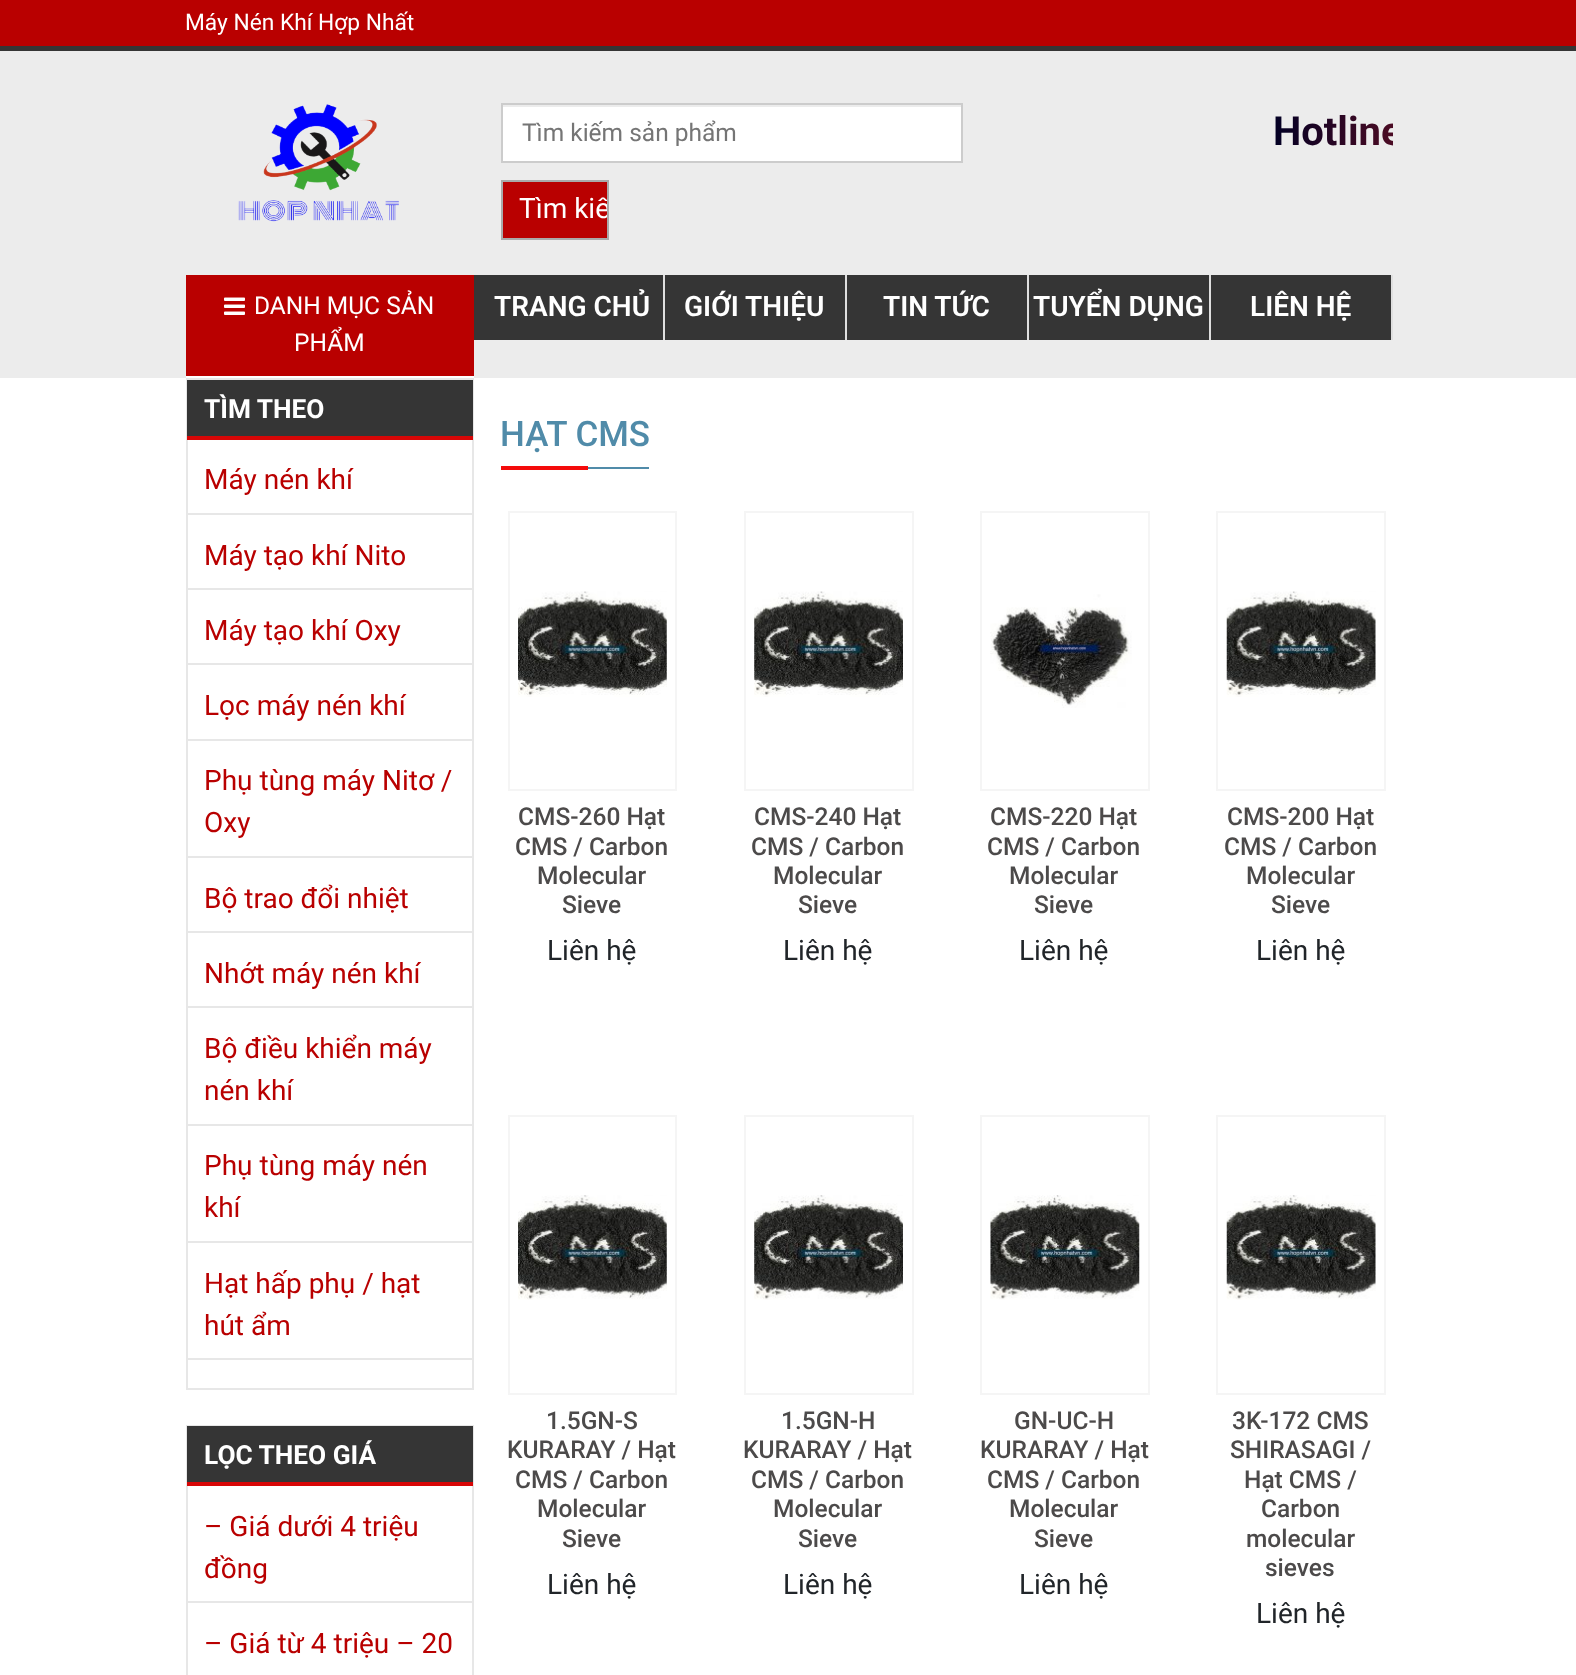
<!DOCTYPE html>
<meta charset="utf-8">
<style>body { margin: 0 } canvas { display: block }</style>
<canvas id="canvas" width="1576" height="1675"></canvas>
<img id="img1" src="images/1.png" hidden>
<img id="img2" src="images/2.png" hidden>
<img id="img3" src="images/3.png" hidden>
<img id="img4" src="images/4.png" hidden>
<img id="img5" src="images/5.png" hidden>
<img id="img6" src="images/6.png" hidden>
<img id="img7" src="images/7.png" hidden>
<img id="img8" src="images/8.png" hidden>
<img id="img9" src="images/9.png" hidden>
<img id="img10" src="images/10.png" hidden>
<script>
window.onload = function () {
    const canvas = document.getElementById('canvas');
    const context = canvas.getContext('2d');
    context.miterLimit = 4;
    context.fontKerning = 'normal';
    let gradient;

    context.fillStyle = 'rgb(255, 255, 255)';
    context.fillRect(0, 0, 1576, 1675);
    context.fillStyle = 'rgb(185, 0, 0)';
    context.fillRect(0, 0, 1576, 46);
    context.fillStyle = 'rgb(53, 53, 53)';
    context.fillRect(0, 46, 1576, 5);
    context.fillStyle = 'rgb(236, 236, 236)';
    context.fillRect(0, 51, 1576, 327);
    context.drawImage(document.getElementById('img1'), 238, 104, 161, 118);
    context.fillStyle = 'rgb(255, 255, 255)';
    context.fillRect(503, 107, 458, 54);
    context.strokeStyle = 'rgb(204, 204, 204)';
    context.lineWidth = 2;
    context.strokeRect(502, 104, 460, 58);
    context.fillStyle = 'rgb(185, 0, 0)';
    context.beginPath();
    context.rect(502, 181, 106, 58);
    context.fill();
    context.strokeStyle = 'rgb(170, 170, 170)';
    context.stroke();
    context.fillRect(186, 275, 288, 101);
    context.fillStyle = 'rgb(255, 255, 255)';
    context.fillRect(186, 376, 288, 2);
    context.drawImage(document.getElementById('img2'), 224, 297, 21, 18);
    context.fillStyle = 'rgb(53, 53, 53)';
    context.fillRect(474, 275, 917, 65);
    context.fillStyle = 'rgb(223, 223, 223)';
    context.fillRect(663, 275, 2, 65);
    context.fillRect(845, 275, 2, 65);
    context.fillRect(1027, 275, 2, 65);
    context.fillRect(1209, 275, 2, 65);
    context.fillRect(1391, 275, 2, 65);
    context.strokeStyle = 'rgb(231, 231, 231)';
    context.strokeRect(187, 379, 286, 1010);
    context.fillStyle = 'rgb(53, 53, 53)';
    context.fillRect(187, 380, 286, 56);
    context.fillStyle = 'rgb(215, 6, 6)';
    context.fillRect(187, 436, 286, 4);
    context.fillStyle = 'rgb(231, 231, 231)';
    context.fillRect(187, 513, 286, 2);
    context.fillRect(187, 588, 286, 2);
    context.fillRect(187, 663, 286, 2);
    context.fillRect(187, 739, 286, 2);
    context.fillRect(187, 856, 286, 2);
    context.fillRect(187, 931, 286, 2);
    context.fillRect(187, 1006, 286, 2);
    context.fillRect(187, 1124, 286, 2);
    context.fillRect(187, 1241, 286, 2);
    context.fillRect(187, 1358, 286, 2);
    context.strokeRect(187, 1426, 286, 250);
    context.fillStyle = 'rgb(53, 53, 53)';
    context.fillRect(187, 1426, 286, 56);
    context.fillStyle = 'rgb(215, 6, 6)';
    context.fillRect(187, 1482, 286, 4);
    context.fillStyle = 'rgb(231, 231, 231)';
    context.fillRect(187, 1601, 286, 2);
    context.fillStyle = 'rgb(80, 139, 169)';
    context.fillRect(588, 467, 61, 2);
    context.fillStyle = 'rgb(244, 11, 11)';
    context.fillRect(501, 466, 87, 4);
    context.strokeStyle = 'rgb(245, 245, 245)';
    context.strokeRect(509, 512, 167, 278);
    context.drawImage(document.getElementById('img3'), 518, 591, 149, 106);
    context.strokeRect(745, 512, 168, 278);
    context.drawImage(document.getElementById('img4'), 754, 591, 149, 106);
    context.strokeRect(981, 512, 168, 278);
    context.drawImage(document.getElementById('img5'), 990, 594, 142, 114);
    context.strokeRect(1217, 512, 168, 278);
    context.drawImage(document.getElementById('img6'), 1226, 591, 150, 106);
    context.strokeRect(509, 1116, 167, 278);
    context.drawImage(document.getElementById('img7'), 518, 1195, 149, 105);
    context.strokeRect(745, 1116, 168, 278);
    context.drawImage(document.getElementById('img8'), 754, 1195, 149, 105);
    context.strokeRect(981, 1116, 168, 278);
    context.drawImage(document.getElementById('img9'), 990, 1195, 150, 105);
    context.strokeRect(1217, 1116, 168, 278);
    context.drawImage(document.getElementById('img10'), 1226, 1195, 150, 105);
    context.font = '22.75px Roboto';
    context.fillStyle = 'rgb(255, 255, 255)';
    context.fillText('Máy Nén Khí Hợp Nhất', 185, 30);
    context.font = '24.5px Roboto';
    context.fillStyle = 'rgb(117, 117, 117)';
    context.fillText('Tìm kiếm sản phẩm', 522, 141);
    context.save();
    context.beginPath();
    context.rect(502, 182, 105, 56);
    context.clip();
    context.font = '28px Roboto';
    context.fillStyle = 'rgb(255, 255, 255)';
    context.fillText('Tìm kiế', 519, 218);
    context.restore();
    context.save();
    context.beginPath();
    context.rect(1183, 103, 210, 60);
    context.clip();
    context.font = 'bold 40px Roboto';
    gradient = context.createLinearGradient(1273, 131, 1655, 131);
    gradient.addColorStop(0, 'rgb(2, 0, 36)');
    gradient.addColorStop(1, 'rgb(235, 36, 36)');
    context.fillStyle = gradient;
    context.fillText('Hotline', 1273, 145);
    context.restore();
    context.fillStyle = 'rgb(255, 255, 255)';
    context.fillText('DANH MỤC SẢN', 254, 314);
    context.fillText('PHẨM', 294, 351);
    context.font = '600 28px Roboto';
    context.fillText('TRANG CHỦ', 494, 316);
    context.fillText('GIỚI THIỆU', 684, 316);
    context.fillText('TIN TỨC', 883, 316);
    context.fillText('TUYỂN DỤNG', 1033, 316);
    context.fillText('LIÊN HỆ', 1250, 316);
    context.font = 'bold 26.25px Roboto';
    context.fillText('TÌM THEO', 204, 418);
    context.font = '28px Roboto';
    context.fillStyle = 'rgb(185, 0, 0)';
    context.fillText('Máy nén khí', 204, 489);
    context.fillText('Máy tạo khí Nito', 204, 565);
    context.fillText('Máy tạo khí Oxy', 204, 640);
    context.fillText('Lọc máy nén khí', 204, 715);
    context.fillText('Phụ tùng máy Nitơ /', 204, 790);
    context.fillText('Oxy', 204, 832);
    context.fillText('Bộ trao đổi nhiệt', 204, 908);
    context.fillText('Nhớt máy nén khí', 204, 983);
    context.fillText('Bộ điều khiển máy', 204, 1058);
    context.fillText('nén khí', 204, 1100);
    context.fillText('Phụ tùng máy nén', 204, 1175);
    context.fillText('khí', 204, 1217);
    context.fillText('Hạt hấp phụ / hạt', 204, 1293);
    context.fillText('hút ẩm', 204, 1335);
    context.font = 'bold 26.25px Roboto';
    context.fillStyle = 'rgb(255, 255, 255)';
    context.fillText('LỌC THEO GIÁ', 204, 1464);
    context.font = '28px Roboto';
    context.fillStyle = 'rgb(185, 0, 0)';
    context.fillText('– Giá dưới 4 triệu', 204, 1536);
    context.fillText('đồng', 204, 1578);
    context.fillText('– Giá từ 4 triệu – 20', 204, 1653);
    context.font = '500 35px Roboto';
    context.fillStyle = 'rgb(80, 139, 169)';
    context.fillText('HẠT CMS', 500, 446);
    context.font = '500 24.5px Roboto';
    context.fillStyle = 'rgb(76, 74, 74)';
    context.fillText('CMS-260 Hạt', 518, 825);
    context.fillText('CMS / Carbon', 515, 855);
    context.fillText('Molecular', 537, 884);
    context.fillText('Sieve', 562, 913);
    context.font = '28px Roboto';
    context.fillStyle = 'rgb(33, 37, 41)';
    context.fillText('Liên hệ', 547, 960);
    context.font = '500 24.5px Roboto';
    context.fillStyle = 'rgb(76, 74, 74)';
    context.fillText('CMS-240 Hạt', 754, 825);
    context.fillText('CMS / Carbon', 751, 855);
    context.fillText('Molecular', 773, 884);
    context.fillText('Sieve', 798, 913);
    context.font = '28px Roboto';
    context.fillStyle = 'rgb(33, 37, 41)';
    context.fillText('Liên hệ', 783, 960);
    context.font = '500 24.5px Roboto';
    context.fillStyle = 'rgb(76, 74, 74)';
    context.fillText('CMS-220 Hạt', 990, 825);
    context.fillText('CMS / Carbon', 987, 855);
    context.fillText('Molecular', 1009, 884);
    context.fillText('Sieve', 1034, 913);
    context.font = '28px Roboto';
    context.fillStyle = 'rgb(33, 37, 41)';
    context.fillText('Liên hệ', 1019, 960);
    context.font = '500 24.5px Roboto';
    context.fillStyle = 'rgb(76, 74, 74)';
    context.fillText('CMS-200 Hạt', 1227, 825);
    context.fillText('CMS / Carbon', 1224, 855);
    context.fillText('Molecular', 1246, 884);
    context.fillText('Sieve', 1271, 913);
    context.font = '28px Roboto';
    context.fillStyle = 'rgb(33, 37, 41)';
    context.fillText('Liên hệ', 1256, 960);
    context.font = '500 24.5px Roboto';
    context.fillStyle = 'rgb(76, 74, 74)';
    context.fillText('1.5GN-S', 546, 1429);
    context.fillText('KURARAY / Hạt', 507, 1458);
    context.fillText('CMS / Carbon', 515, 1488);
    context.fillText('Molecular', 537, 1517);
    context.fillText('Sieve', 562, 1547);
    context.font = '28px Roboto';
    context.fillStyle = 'rgb(33, 37, 41)';
    context.fillText('Liên hệ', 547, 1594);
    context.font = '500 24.5px Roboto';
    context.fillStyle = 'rgb(76, 74, 74)';
    context.fillText('1.5GN-H', 781, 1429);
    context.fillText('KURARAY / Hạt', 743, 1458);
    context.fillText('CMS / Carbon', 751, 1488);
    context.fillText('Molecular', 773, 1517);
    context.fillText('Sieve', 798, 1547);
    context.font = '28px Roboto';
    context.fillStyle = 'rgb(33, 37, 41)';
    context.fillText('Liên hệ', 783, 1594);
    context.font = '500 24.5px Roboto';
    context.fillStyle = 'rgb(76, 74, 74)';
    context.fillText('GN-UC-H', 1014, 1429);
    context.fillText('KURARAY / Hạt', 980, 1458);
    context.fillText('CMS / Carbon', 987, 1488);
    context.fillText('Molecular', 1009, 1517);
    context.fillText('Sieve', 1034, 1547);
    context.font = '28px Roboto';
    context.fillStyle = 'rgb(33, 37, 41)';
    context.fillText('Liên hệ', 1019, 1594);
    context.font = '500 24.5px Roboto';
    context.fillStyle = 'rgb(76, 74, 74)';
    context.fillText('3K-172 CMS', 1232, 1429);
    context.fillText('SHIRASAGI /', 1230, 1458);
    context.fillText('Hạt CMS /', 1244, 1488);
    context.fillText('Carbon', 1261, 1517);
    context.fillText('molecular', 1246, 1547);
    context.fillText('sieves', 1265, 1576);
    context.font = '28px Roboto';
    context.fillStyle = 'rgb(33, 37, 41)';
    context.fillText('Liên hệ', 1256, 1623);
};
</script>
